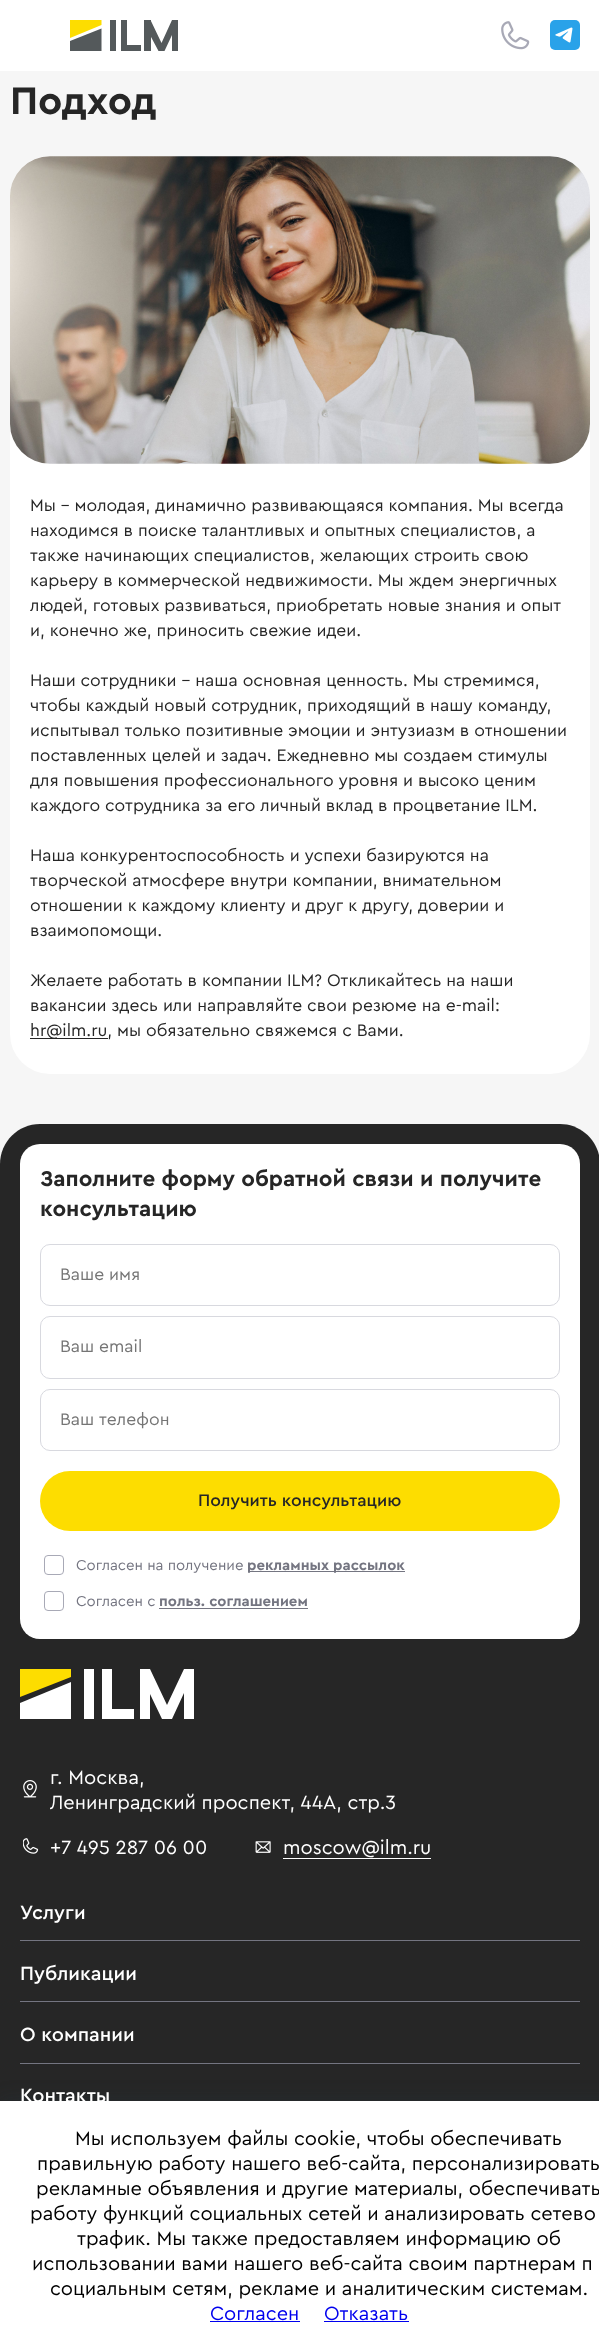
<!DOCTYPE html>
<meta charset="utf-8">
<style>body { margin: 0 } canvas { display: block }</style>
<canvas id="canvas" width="599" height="2351"></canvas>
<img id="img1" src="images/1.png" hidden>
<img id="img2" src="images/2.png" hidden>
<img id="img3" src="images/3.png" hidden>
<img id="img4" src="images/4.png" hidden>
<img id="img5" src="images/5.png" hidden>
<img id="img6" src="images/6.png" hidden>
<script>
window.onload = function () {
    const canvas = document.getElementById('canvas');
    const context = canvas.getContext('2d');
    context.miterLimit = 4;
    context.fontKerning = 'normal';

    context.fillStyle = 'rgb(246, 246, 246)';
    context.fillRect(0, 0, 599, 2351);
    context.fillStyle = 'rgb(255, 255, 255)';
    context.fillRect(0, 0, 599, 71);
    context.fillStyle = 'rgb(84, 89, 91)';
    context.beginPath();
    context.moveTo(161.5, 43);
    context.lineTo(150.5, 20);
    context.lineTo(150.5, 36);
    context.lineTo(158.5, 51);
    context.lineTo(164.5, 51);
    context.lineTo(172, 35);
    context.lineTo(172, 20);
    context.closePath();
    context.fill();
    context.fillRect(110, 20, 6, 31);
    context.fillRect(144, 20, 7, 31);
    context.fillRect(172, 20, 6, 31);
    context.fillRect(121, 20, 6, 31);
    context.fillRect(121, 45, 20, 6);
    context.beginPath();
    context.moveTo(70, 51);
    context.lineTo(70, 41);
    context.lineTo(101.5, 28.5);
    context.lineTo(101.5, 51);
    context.closePath();
    context.fill();
    context.fillStyle = 'rgb(253, 221, 0)';
    context.beginPath();
    context.moveTo(101.5, 20);
    context.lineTo(101.5, 25);
    context.lineTo(70, 38);
    context.lineTo(70, 20);
    context.closePath();
    context.fill();
    context.drawImage(document.getElementById('img1'), 501, 21, 29, 29);
    context.fillStyle = 'rgb(41, 162, 233)';
    context.beginPath();
    context.roundRect(550, 20, 30, 30, 5);
    context.fill();
    context.drawImage(document.getElementById('img2'), 555, 27, 18, 16);
    context.fillStyle = 'rgb(255, 255, 255)';
    context.beginPath();
    context.roundRect(10, 156, 580, 918, 40);
    context.fill();
    context.drawImage(document.getElementById('img3'), 10, 156, 580, 308);
    context.fillStyle = 'rgb(38, 38, 38)';
    context.fillRect(30, 1038, 78, 1);
    context.beginPath();
    context.moveTo(40, 1124);
    context.lineTo(560, 1124);
    context.bezierCurveTo(582, 1124, 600, 1142, 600, 1164);
    context.lineTo(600, 2246);
    context.lineTo(0, 2246);
    context.lineTo(0, 1164);
    context.bezierCurveTo(0, 1142, 18, 1124, 40, 1124);
    context.closePath();
    context.fill();
    context.fillStyle = 'rgb(255, 255, 255)';
    context.beginPath();
    context.roundRect(20, 1144, 560, 495, 20);
    context.fill();
    context.beginPath();
    context.roundRect(40.5, 1244.5, 519, 61, 9.5);
    context.strokeStyle = 'rgb(216, 217, 223)';
    context.stroke();
    context.beginPath();
    context.roundRect(40.5, 1316.5, 519, 62, 9.5);
    context.stroke();
    context.beginPath();
    context.roundRect(40.5, 1389.5, 519, 61, 9.5);
    context.stroke();
    context.fillStyle = 'rgb(253, 221, 0)';
    context.beginPath();
    context.roundRect(40, 1471, 520, 60, 30);
    context.fill();
    context.beginPath();
    context.roundRect(44.5, 1555.5, 19, 19, 3.5);
    context.strokeStyle = 'rgb(168, 169, 182)';
    context.stroke();
    context.fillStyle = 'rgb(116, 117, 129)';
    context.fillRect(248, 1571, 157, 1);
    context.beginPath();
    context.roundRect(44.5, 1591.5, 19, 19, 3.5);
    context.stroke();
    context.fillRect(159, 1608, 149, 1);
    context.fillStyle = 'rgb(255, 255, 255)';
    context.beginPath();
    context.moveTo(20, 1719);
    context.lineTo(20, 1703);
    context.lineTo(71, 1682);
    context.lineTo(71, 1719);
    context.closePath();
    context.fill();
    context.fillStyle = 'rgb(253, 221, 0)';
    context.beginPath();
    context.moveTo(71, 1669);
    context.lineTo(71, 1677);
    context.lineTo(20, 1697);
    context.lineTo(20, 1669);
    context.closePath();
    context.fill();
    context.fillStyle = 'rgb(255, 255, 255)';
    context.fillRect(84, 1669, 10, 50);
    context.fillRect(102, 1669, 10, 40);
    context.fillRect(140, 1669, 10, 50);
    context.beginPath();
    context.moveTo(167, 1705);
    context.lineTo(150, 1669);
    context.lineTo(150, 1694);
    context.lineTo(162, 1719);
    context.lineTo(172, 1719);
    context.lineTo(184, 1693);
    context.lineTo(184, 1669);
    context.closePath();
    context.fill();
    context.fillRect(184, 1669, 10, 50);
    context.fillRect(102, 1709, 32, 10);
    context.drawImage(document.getElementById('img4'), 23, 1780, 14, 18);
    context.drawImage(document.getElementById('img5'), 23, 1838, 16, 16);
    context.drawImage(document.getElementById('img6'), 255, 1841, 16, 12);
    context.fillRect(283, 1858, 148, 1);
    context.fillStyle = 'rgb(116, 117, 129)';
    context.fillRect(20, 1940, 560, 1);
    context.fillRect(20, 2001, 560, 1);
    context.fillRect(20, 2063, 560, 1);
    context.fillStyle = 'rgba(34, 60, 80, 0.2)';
    context.filter = 'blur(9px)';
    context.beginPath();
    context.rect(0, 2099, 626, 250);
    context.fill();
    context.filter = 'none';
    context.fillStyle = 'rgb(255, 255, 255)';
    context.fillRect(0, 2101, 599, 250);
    context.fillStyle = 'rgb(0, 0, 238)';
    context.fillRect(210, 2321, 90, 1);
    context.fillRect(324, 2321, 85, 1);
    context.font = 'bold 40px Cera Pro';
    context.fillStyle = 'rgb(38, 38, 38)';
    context.fillText('Подход', 10, 114);
    context.font = '17.5px Cera Pro';
    context.fillText('Мы - молодая, динамично развивающаяся компания. Мы всегда', 30, 511);
    context.fillText('находимся в поиске талантливых и опытных специалистов, а', 30, 536);
    context.fillText('также начинающих специалистов, желающих строить свою', 30, 561);
    context.fillText('карьеру в коммерческой недвижимости. Мы ждем энергичных', 30, 586);
    context.fillText('людей, готовых развиваться, приобретать новые знания и опыт', 30, 611);
    context.fillText('и, конечно же, приносить свежие идеи.', 30, 636);
    context.fillText('Наши сотрудники - наша основная ценность. Мы стремимся,', 30, 686);
    context.fillText('чтобы каждый новый сотрудник, приходящий в нашу команду,', 30, 711);
    context.fillText('испытывал только позитивные эмоции и энтузиазм в отношении', 30, 736);
    context.fillText('поставленных целей и задач. Ежедневно мы создаем стимулы', 30, 761);
    context.fillText('для повышения профессионального уровня и высоко ценим', 30, 786);
    context.fillText('каждого сотрудника за его личный вклад в процветание ILM.', 30, 811);
    context.fillText('Наша конкурентоспособность и успехи базируются на', 30, 861);
    context.fillText('творческой атмосфере внутри компании, внимательном', 30, 886);
    context.fillText('отношении к каждому клиенту и друг к другу, доверии и', 30, 911);
    context.fillText('взаимопомощи.', 30, 936);
    context.fillText('Желаете работать в компании ILM? Откликайтесь на наши', 30, 986);
    context.fillText('вакансии здесь или направляйте свои резюме на e-mail:', 30, 1011);
    context.fillText('hr@ilm.ru, мы обязательно свяжемся с Вами.', 30, 1036);
    context.font = 'bold 22.5px Cera Pro';
    context.fillText('Заполните форму обратной связи и получите', 40, 1186);
    context.fillText('консультацию', 40, 1216);
    context.font = '17.5px Cera Pro';
    context.fillStyle = 'rgb(117, 117, 117)';
    context.fillText('Ваше имя', 60, 1280);
    context.fillText('Ваш email', 60, 1352);
    context.fillText('Ваш телефон', 60, 1425);
    context.font = '500 17.5px Cera Pro';
    context.fillStyle = 'rgb(38, 38, 38)';
    context.fillText('Получить консультацию', 198, 1506);
    context.font = '15px Cera Pro';
    context.fillStyle = 'rgb(116, 117, 129)';
    context.fillText('Согласен на получение', 76, 1570);
    context.font = 'bold 15px Cera Pro';
    context.fillText('рекламных рассылок', 247, 1570);
    context.font = '15px Cera Pro';
    context.fillText('Согласен с', 76, 1606);
    context.font = 'bold 15px Cera Pro';
    context.fillText('польз. соглашением', 159, 1606);
    context.font = '20px Cera Pro';
    context.fillStyle = 'rgb(255, 255, 255)';
    context.fillText('г. Москва,', 50, 1784);
    context.fillText('Ленинградский проспект, 44А, стр.3', 50, 1809);
    context.fillText('+7 495 287 06 00', 50, 1854);
    context.fillText('moscow@ilm.ru', 283, 1854);
    context.font = '500 20px Cera Pro';
    context.fillText('Услуги', 20, 1919);
    context.fillText('Публикации', 20, 1980);
    context.fillText('О компании', 20, 2041);
    context.fillText('Контакты', 20, 2102);
    context.font = '20px Cera Pro';
    context.fillStyle = 'rgb(0, 0, 0)';
    context.fillText('Мы используем файлы cookie, чтобы обеспечивать', 75, 2145);
    context.fillText('правильную работу нашего веб-сайта, персонализировать', 37, 2170);
    context.fillText('рекламные объявления и другие материалы, обеспечивать', 36, 2195);
    context.fillText('работу функций социальных сетей и анализировать сетево', 30, 2220);
    context.fillText('трафик. Мы также предоставляем информацию об', 77, 2245);
    context.fillText('использовании вами нашего веб-сайта своим партнерам п', 32, 2270);
    context.fillText('социальным сетям, рекламе и аналитическим системам.', 50, 2295);
    context.fillStyle = 'rgb(0, 0, 238)';
    context.fillText('Согласен', 210, 2320);
    context.fillText('Отказать', 324, 2320);
};
</script>
